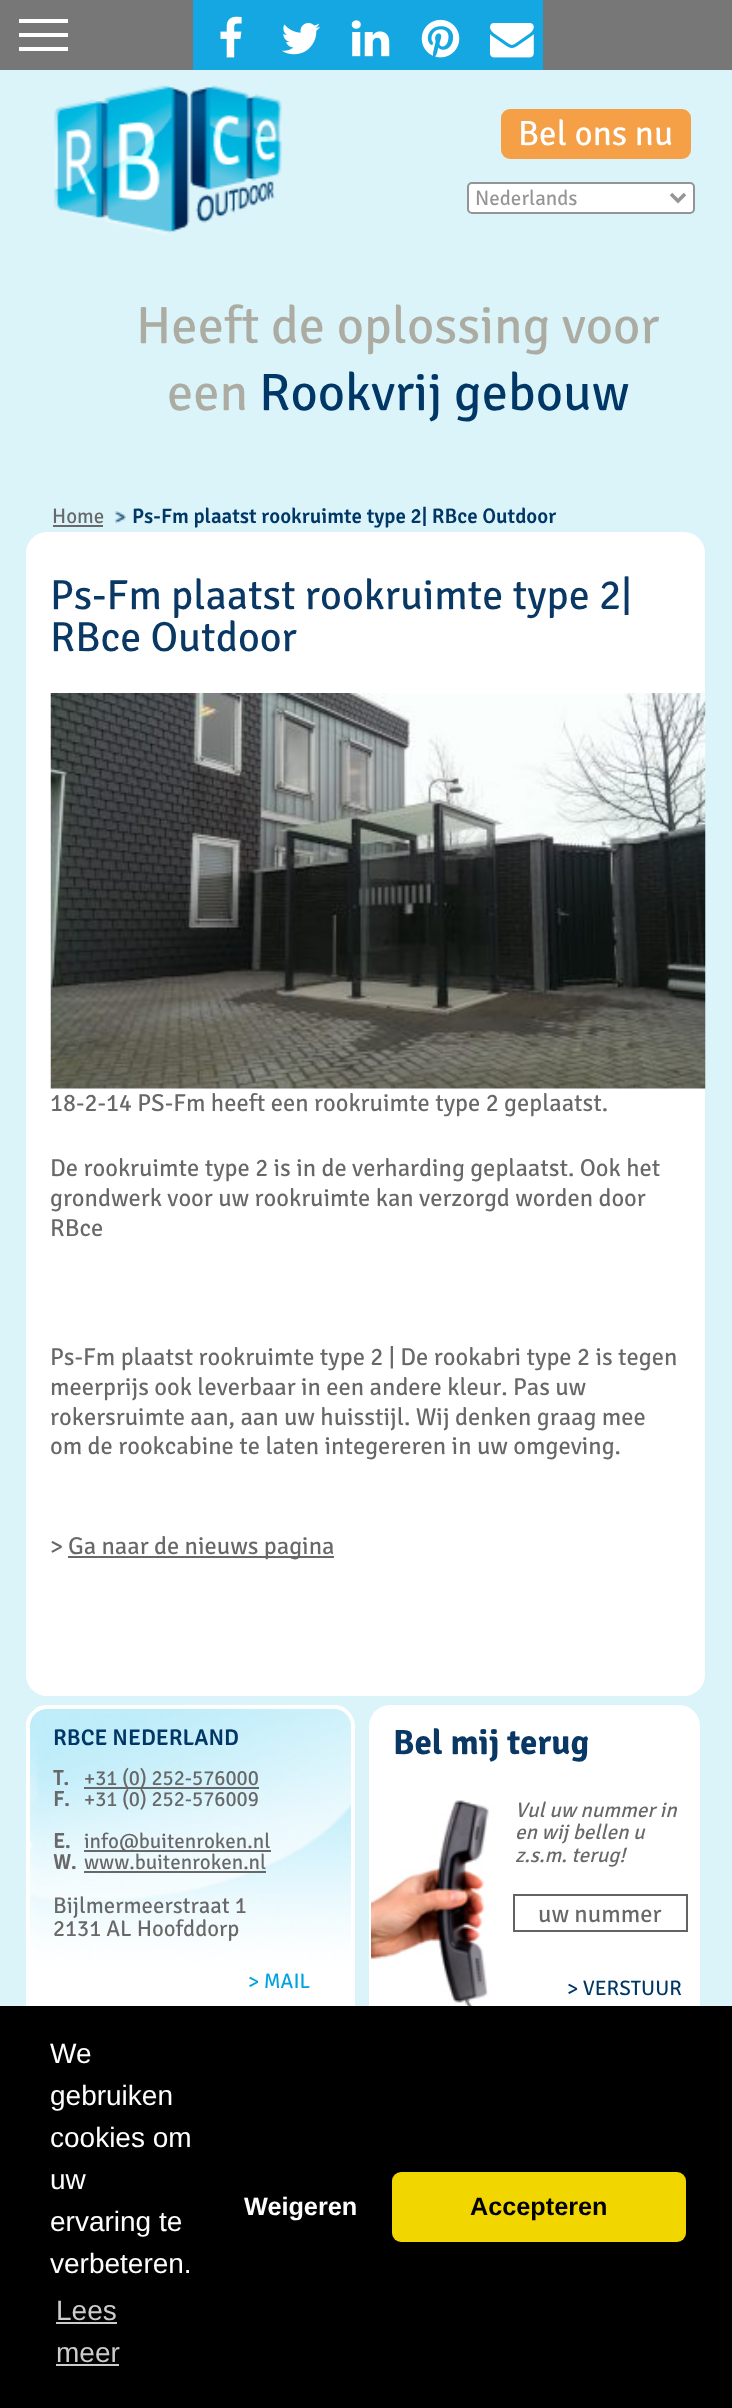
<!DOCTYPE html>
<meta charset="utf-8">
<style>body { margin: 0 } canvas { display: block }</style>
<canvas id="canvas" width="732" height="2408"></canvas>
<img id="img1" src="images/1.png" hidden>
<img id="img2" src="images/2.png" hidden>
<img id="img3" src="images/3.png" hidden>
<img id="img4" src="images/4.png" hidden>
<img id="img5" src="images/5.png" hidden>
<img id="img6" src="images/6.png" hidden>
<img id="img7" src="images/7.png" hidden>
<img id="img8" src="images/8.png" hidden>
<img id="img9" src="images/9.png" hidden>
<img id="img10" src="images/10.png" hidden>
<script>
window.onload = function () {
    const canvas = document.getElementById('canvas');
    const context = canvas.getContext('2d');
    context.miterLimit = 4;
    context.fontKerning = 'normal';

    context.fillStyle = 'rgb(218, 244, 250)';
    context.fillRect(0, 0, 732, 2408);
    context.fillStyle = 'rgb(119, 119, 119)';
    context.fillRect(0, 0, 732, 70);
    context.fillStyle = 'rgb(255, 255, 255)';
    context.fillRect(19, 19, 49, 4);
    context.fillRect(19, 33, 49, 4);
    context.fillRect(19, 47, 49, 4);
    context.fillStyle = 'rgb(21, 167, 226)';
    context.fillRect(193, 0, 350, 70);
    context.drawImage(document.getElementById('img1'), 220, 16, 22, 42);
    context.drawImage(document.getElementById('img2'), 282, 23, 39, 32);
    context.drawImage(document.getElementById('img3'), 351, 20, 39, 37);
    context.drawImage(document.getElementById('img4'), 421, 19, 39, 39);
    context.drawImage(document.getElementById('img5'), 490, 23, 44, 35);
    context.drawImage(document.getElementById('img6'), 54, 85, 228, 150);
    context.fillStyle = 'rgb(245, 159, 70)';
    context.beginPath();
    context.roundRect(501, 109, 190, 50, 9);
    context.fill();
    context.fillStyle = 'rgb(255, 255, 255)';
    context.beginPath();
    context.roundRect(468, 183, 226, 30, 4);
    context.fill();
    context.strokeStyle = 'rgb(148, 148, 148)';
    context.lineWidth = 2;
    context.stroke();
    context.beginPath();
    context.moveTo(671, 194);
    context.lineTo(678, 201);
    context.lineTo(685, 194);
    context.strokeStyle = 'rgb(149, 149, 149)';
    context.lineWidth = 3.5;
    context.stroke();
    context.fillStyle = 'rgb(104, 104, 104)';
    context.fillRect(53, 525, 50, 2);
    context.drawImage(document.getElementById('img7'), 115, 511, 11, 13);
    context.fillStyle = 'rgb(255, 255, 255)';
    context.beginPath();
    context.roundRect(26, 532, 679, 1164, 21);
    context.fill();
    context.drawImage(document.getElementById('img8'), 50, 693, 656, 396);
    context.fillStyle = 'rgb(104, 104, 104)';
    context.fillRect(68, 1556, 266, 2);
    context.fillStyle = 'rgb(255, 255, 255)';
    context.beginPath();
    context.roundRect(26, 1705, 329, 330, 21);
    context.fill();
    context.drawImage(document.getElementById('img9'), 29, 1708, 326, 298);
    context.beginPath();
    context.roundRect(28, 1707, 325, 326, 19);
    context.strokeStyle = 'rgb(255, 255, 255)';
    context.lineWidth = 4;
    context.stroke();
    context.fillStyle = 'rgb(104, 104, 104)';
    context.fillRect(84, 1787, 175, 2);
    context.fillRect(84, 1850, 187, 2);
    context.fillRect(84, 1871, 182, 2);
    context.fillStyle = 'rgb(255, 255, 255)';
    context.beginPath();
    context.roundRect(369, 1705, 331, 330, 21);
    context.fill();
    context.drawImage(document.getElementById('img10'), 371, 1800, 327, 206);
    context.strokeStyle = 'rgb(99, 99, 99)';
    context.lineWidth = 2;
    context.strokeRect(514, 1895, 173, 36);
    context.fillStyle = 'rgb(0, 0, 0)';
    context.fillRect(0, 2006, 732, 402);
    context.fillStyle = 'rgb(204, 204, 204)';
    context.fillRect(56, 2322, 61, 2);
    context.fillRect(56, 2364, 63, 2);
    context.fillStyle = 'rgb(241, 214, 0)';
    context.beginPath();
    context.roundRect(392, 2172, 294, 70, 9);
    context.fill();
    context.font = '35px Signika Negative';
    context.fillStyle = 'rgb(255, 255, 255)';
    context.fillText('Bel ons nu', 518, 145);
    context.font = '21px Signika Negative';
    context.fillStyle = 'rgb(149, 149, 149)';
    context.fillText('Nederlands', 475, 205);
    context.font = '52.5px Signika Negative';
    context.fillStyle = 'rgb(172, 172, 163)';
    context.fillText('Heeft de oplossing voor', 136, 343);
    context.fillText('een', 167, 410);
    context.fillStyle = 'rgb(0, 55, 102)';
    context.fillText('Rookvrij gebouw', 259, 410);
    context.font = '21px Signika Negative';
    context.fillStyle = 'rgb(104, 104, 104)';
    context.fillText('Home', 52, 523);
    context.font = '600 21px Signika Negative';
    context.fillStyle = 'rgb(0, 55, 102)';
    context.fillText('Ps-Fm plaatst rookruimte type 2| RBce Outdoor', 132, 523);
    context.font = '42px Signika Negative';
    context.fillStyle = 'rgb(9, 56, 101)';
    context.fillText('Ps-Fm plaatst rookruimte type 2|', 50, 609);
    context.fillText('RBce Outdoor', 50, 651);
    context.font = '24.5px Signika Negative';
    context.fillStyle = 'rgb(104, 104, 104)';
    context.fillText('18-2-14 PS-Fm heeft een rookruimte type 2 geplaatst.', 50, 1111);
    context.fillText('De rookruimte type 2 is in de verharding geplaatst. Ook het', 50, 1176);
    context.fillText('grondwerk voor uw rookruimte kan verzorgd worden door', 50, 1206);
    context.fillText('RBce', 50, 1236);
    context.fillText('Ps-Fm plaatst rookruimte type 2 | De rookabri type 2 is tegen', 50, 1365);
    context.fillText('meerprijs ook leverbaar in een andere kleur. Pas uw', 50, 1395);
    context.fillText('rokersruimte aan, aan uw huisstijl. Wij denken graag mee', 50, 1425);
    context.fillText('om de rookcabine te laten integereren in uw omgeving.', 50, 1454);
    context.fillText('>', 50, 1554);
    context.fillText('Ga naar de nieuws pagina', 68, 1554);
    context.font = '600 22.75px Signika Negative';
    context.fillStyle = 'rgb(0, 55, 102)';
    context.fillText('RBCE NEDERLAND', 53, 1745);
    context.font = 'bold 21px "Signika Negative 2"';
    context.fillStyle = 'rgb(104, 104, 104)';
    context.fillText('T.', 53, 1785);
    context.font = '21px Signika Negative';
    context.fillText('+31 (0) 252-576000', 84, 1785);
    context.font = 'bold 21px "Signika Negative 2"';
    context.fillText('F.', 53, 1806);
    context.font = '21px Signika Negative';
    context.fillText('+31 (0) 252-576009', 84, 1806);
    context.font = 'bold 21px "Signika Negative 2"';
    context.fillText('E.', 53, 1848);
    context.font = '21px Signika Negative';
    context.fillText('info@buitenroken.nl', 84, 1848);
    context.font = 'bold 21px "Signika Negative 2"';
    context.fillText('W.', 53, 1869);
    context.font = '21px Signika Negative';
    context.fillText('www.buitenroken.nl', 84, 1869);
    context.font = '22.75px Signika Negative';
    context.fillText('Bijlmermeerstraat 1', 53, 1913);
    context.fillText('2131 AL Hoofddorp', 53, 1936);
    context.font = '21px Signika Negative';
    context.fillStyle = 'rgb(0, 162, 225)';
    context.fillText('> MAIL', 248, 1988);
    context.font = 'bold 35px Signika Negative';
    context.fillStyle = 'rgb(9, 56, 101)';
    context.fillText('Bel mij terug', 393, 1754);
    context.font = 'italic 21px Signika Negative';
    context.fillStyle = 'rgb(104, 104, 104)';
    context.fillText('Vul uw nummer in', 515, 1817);
    context.fillText('en wij bellen u', 515, 1839);
    context.fillText('z.s.m. terug!', 515, 1862);
    context.font = '24.5px Signika Negative';
    context.fillText('uw nummer', 538, 1922);
    context.font = '21px Signika Negative';
    context.fillStyle = 'rgb(0, 55, 102)';
    context.fillText('> VERSTUUR', 567, 1995);
    context.font = '28px Liberation Sans';
    context.fillStyle = 'rgb(255, 255, 255)';
    context.fillText('We', 50, 2063);
    context.fillText('gebruiken', 50, 2105);
    context.fillText('cookies om', 50, 2147);
    context.fillText('uw', 50, 2189);
    context.fillText('ervaring te', 50, 2231);
    context.fillText('verbeteren.', 50, 2273);
    context.fillStyle = 'rgb(204, 204, 204)';
    context.fillText('Lees', 56, 2320);
    context.fillText('meer', 56, 2362);
    context.font = 'bold 25.25px Liberation Sans';
    context.fillStyle = 'rgb(255, 255, 255)';
    context.fillText('Weigeren', 244, 2215);
    context.fillStyle = 'rgb(0, 0, 0)';
    context.fillText('Accepteren', 470, 2215);
};
</script>
